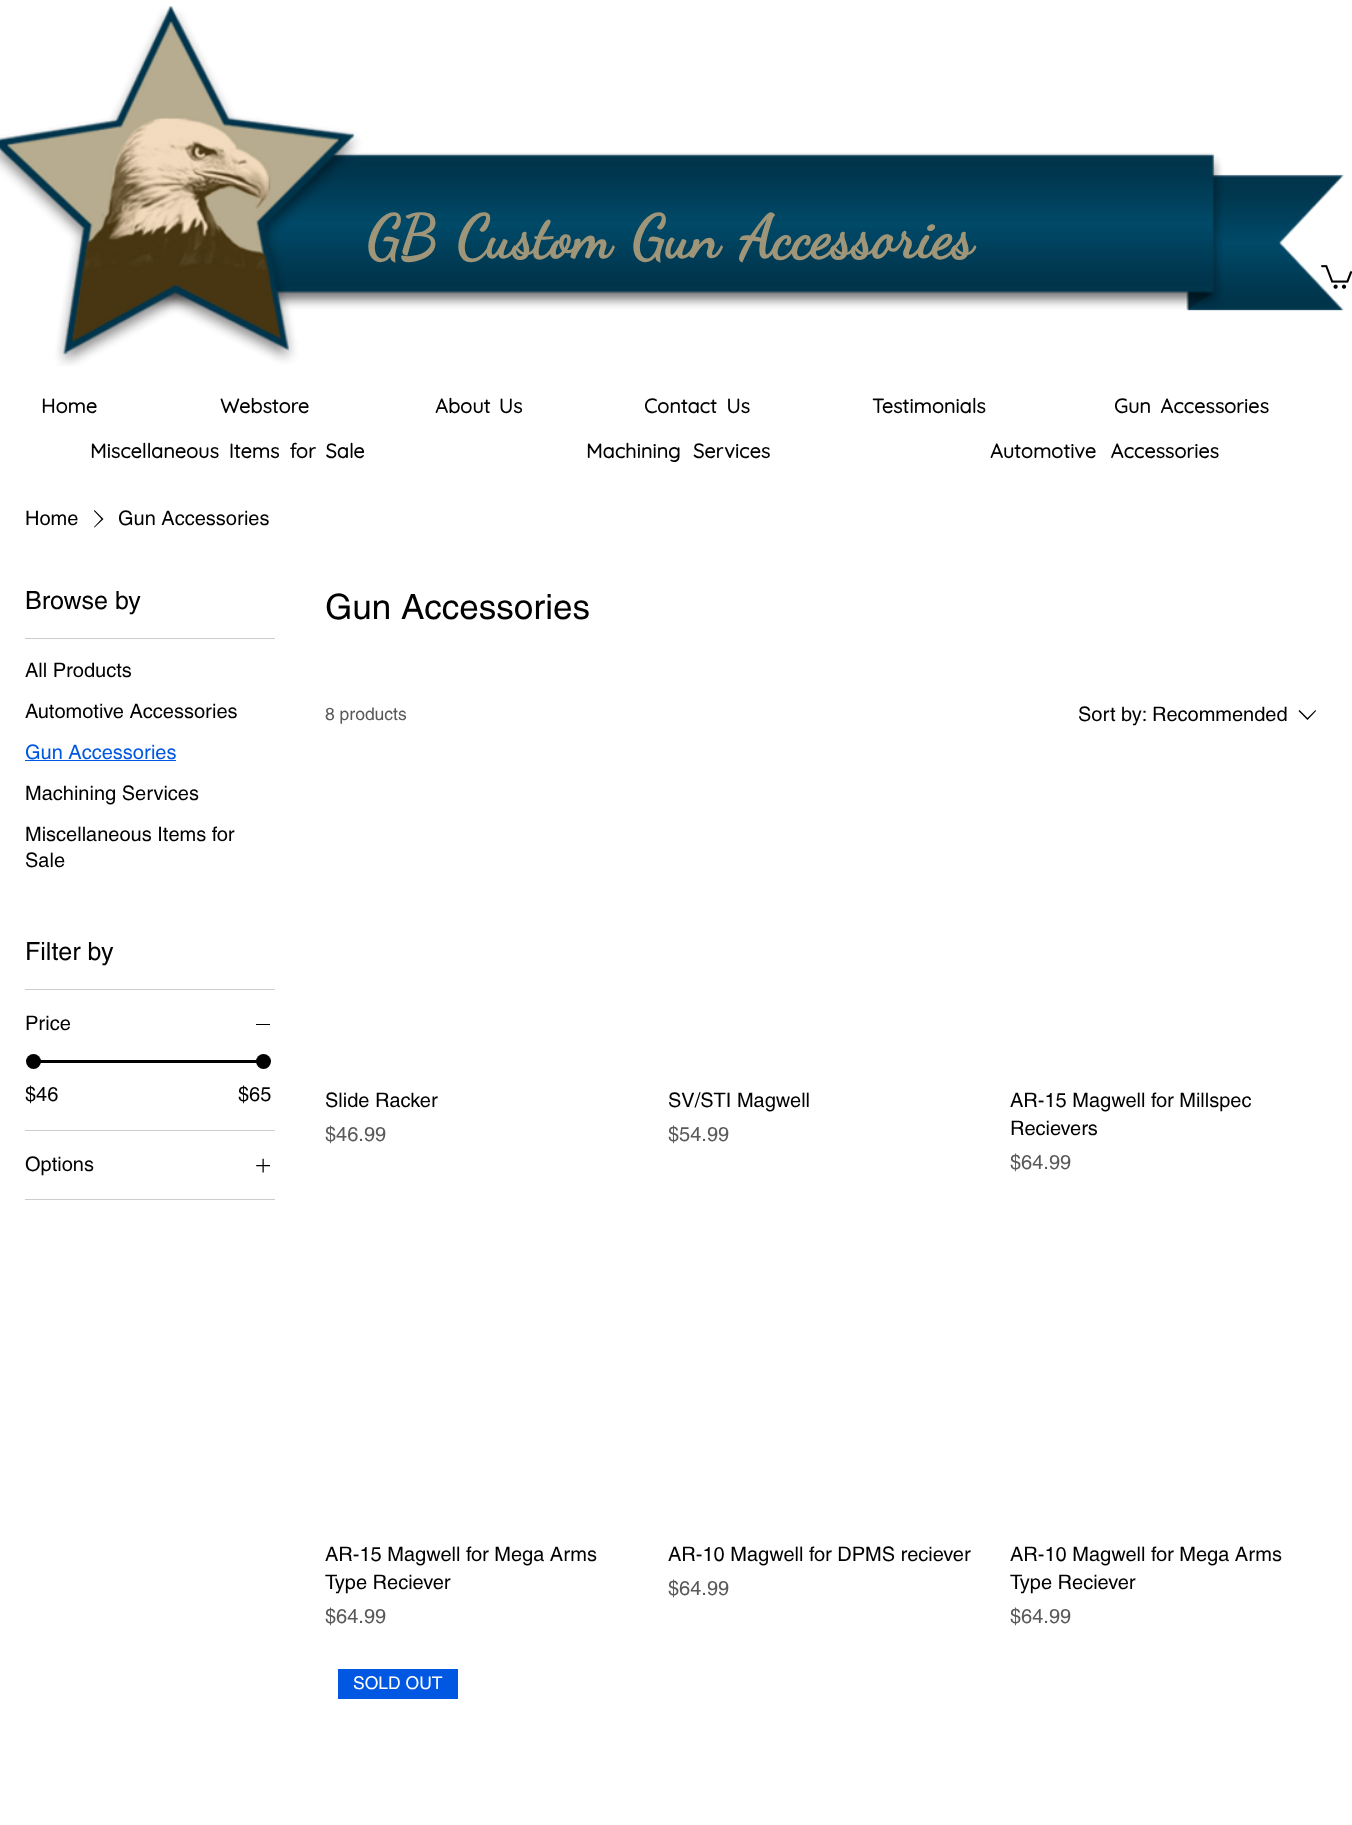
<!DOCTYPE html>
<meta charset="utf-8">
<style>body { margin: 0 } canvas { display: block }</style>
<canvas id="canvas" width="1352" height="1825"></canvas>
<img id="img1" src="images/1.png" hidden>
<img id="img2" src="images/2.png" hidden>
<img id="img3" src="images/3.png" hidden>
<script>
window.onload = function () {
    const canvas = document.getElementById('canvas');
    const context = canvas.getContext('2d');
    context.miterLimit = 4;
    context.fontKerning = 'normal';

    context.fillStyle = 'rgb(255, 255, 255)';
    context.fillRect(0, 0, 1352, 1825);
    context.drawImage(document.getElementById('img1'), 0, 6, 1344, 360);
    context.drawImage(document.getElementById('img2'), 1321, 265, 31, 24);
    context.fillStyle = 'rgb(0, 0, 0)';
    context.beginPath();
    context.moveTo(94.5, 510);
    context.lineTo(103.5, 519);
    context.lineTo(94.5, 527.5);
    context.lineTo(94, 527);
    context.lineTo(101.5, 519);
    context.lineTo(94, 511);
    context.closePath();
    context.fill('evenodd');
    context.fillStyle = 'rgb(204, 204, 204)';
    context.fillRect(25, 638, 250, 1);
    context.fillStyle = 'rgb(0, 87, 225)';
    context.fillRect(25, 760, 151, 1);
    context.fillStyle = 'rgb(204, 204, 204)';
    context.fillRect(25, 989, 250, 1);
    context.fillRect(25, 1130, 250, 1);
    context.fillStyle = 'rgb(0, 0, 0)';
    context.fillRect(256, 1024, 14, 1);
    context.fillRect(33, 1060, 230, 3);
    context.beginPath();
    context.arc(33.5, 1061.5, 7.5, 0, 2 * Math.PI);
    context.fill();
    context.beginPath();
    context.arc(263.5, 1061.5, 7.5, 0, 2 * Math.PI);
    context.fill();
    context.fillStyle = 'rgb(204, 204, 204)';
    context.fillRect(25, 1199, 250, 1);
    context.drawImage(document.getElementById('img3'), 256, 1158, 14, 15);
    context.fillStyle = 'rgb(0, 0, 0)';
    context.beginPath();
    context.moveTo(1315.5, 710);
    context.lineTo(1316, 711);
    context.lineTo(1307.5, 720);
    context.lineTo(1298.5, 711);
    context.lineTo(1299.5, 710);
    context.lineTo(1307.5, 718);
    context.closePath();
    context.fill('evenodd');
    context.fillStyle = 'rgb(0, 87, 225)';
    context.fillRect(338, 1669, 120, 30);
    context.wordSpacing = '5px';
    context.font = 'bold 60px Dancing Script';
    context.fillStyle = 'rgb(159, 150, 121)';
    context.fillText('GB Custom Gun Accessories', 367, 257);
    context.wordSpacing = '0px';
    context.font = 'bold 20px Quicksand';
    context.fillStyle = 'rgb(0, 0, 0)';
    context.fillText('Home', 41, 413);
    context.fillText('Webstore', 220, 413);
    context.wordSpacing = '3px';
    context.fillText('About Us', 435, 413);
    context.wordSpacing = '4px';
    context.fillText('Contact Us', 644, 413);
    context.wordSpacing = '0px';
    context.fillText('Testimonials', 872, 413);
    context.wordSpacing = '4px';
    context.fillText('Gun Accessories', 1114, 413);
    context.wordSpacing = '4.5px';
    context.fillText('Miscellaneous Items for Sale', 90, 458);
    context.wordSpacing = '7px';
    context.fillText('Machining Services', 586, 458);
    context.wordSpacing = '9px';
    context.fillText('Automotive Accessories', 990, 458);
    context.wordSpacing = '0px';
    context.font = '20px helvetica';
    context.fillText('Home', 25, 525);
    context.fillText('Gun Accessories', 118, 525);
    context.font = '25px helvetica';
    context.fillText('Browse by', 25, 609);
    context.font = '20px helvetica';
    context.fillText('All Products', 25, 677);
    context.fillText('Automotive Accessories', 25, 718);
    context.fillStyle = 'rgb(0, 87, 225)';
    context.fillText('Gun Accessories', 25, 759);
    context.fillStyle = 'rgb(0, 0, 0)';
    context.fillText('Machining Services', 25, 800);
    context.fillText('Miscellaneous Items for', 25, 841);
    context.fillText('Sale', 25, 867);
    context.font = '25px helvetica';
    context.fillText('Filter by', 25, 960);
    context.font = '20px helvetica';
    context.fillText('Price', 25, 1030);
    context.fillText('$46', 25, 1101);
    context.fillText('$65', 238, 1101);
    context.fillText('Options', 25, 1171);
    context.font = '35px helvetica';
    context.fillText('Gun Accessories', 325, 619);
    context.font = '17.5px helvetica';
    context.fillStyle = 'rgb(89, 89, 89)';
    context.fillText('8 products', 325, 720);
    context.font = '20px helvetica';
    context.fillStyle = 'rgb(0, 0, 0)';
    context.fillText('Sort by:', 1078, 721);
    context.fillText('Recommended', 1152, 721);
    context.fillText('Slide Racker', 325, 1107);
    context.fillStyle = 'rgb(89, 89, 89)';
    context.fillText('$46.99', 325, 1141);
    context.fillStyle = 'rgb(0, 0, 0)';
    context.fillText('SV/STI Magwell', 668, 1107);
    context.fillStyle = 'rgb(89, 89, 89)';
    context.fillText('$54.99', 668, 1141);
    context.fillStyle = 'rgb(0, 0, 0)';
    context.fillText('AR-15 Magwell for Millspec', 1010, 1107);
    context.fillText('Recievers', 1010, 1135);
    context.fillStyle = 'rgb(89, 89, 89)';
    context.fillText('$64.99', 1010, 1169);
    context.fillStyle = 'rgb(0, 0, 0)';
    context.fillText('AR-15 Magwell for Mega Arms', 325, 1561);
    context.fillText('Type Reciever', 325, 1589);
    context.fillStyle = 'rgb(89, 89, 89)';
    context.fillText('$64.99', 325, 1623);
    context.fillStyle = 'rgb(0, 0, 0)';
    context.fillText('AR-10 Magwell for DPMS reciever', 668, 1561);
    context.fillStyle = 'rgb(89, 89, 89)';
    context.fillText('$64.99', 668, 1595);
    context.fillStyle = 'rgb(0, 0, 0)';
    context.fillText('AR-10 Magwell for Mega Arms', 1010, 1561);
    context.fillText('Type Reciever', 1010, 1589);
    context.fillStyle = 'rgb(89, 89, 89)';
    context.fillText('$64.99', 1010, 1623);
    context.font = '17.5px helvetica';
    context.fillStyle = 'rgb(255, 255, 255)';
    context.fillText('SOLD OUT', 353, 1689);
};
</script>
